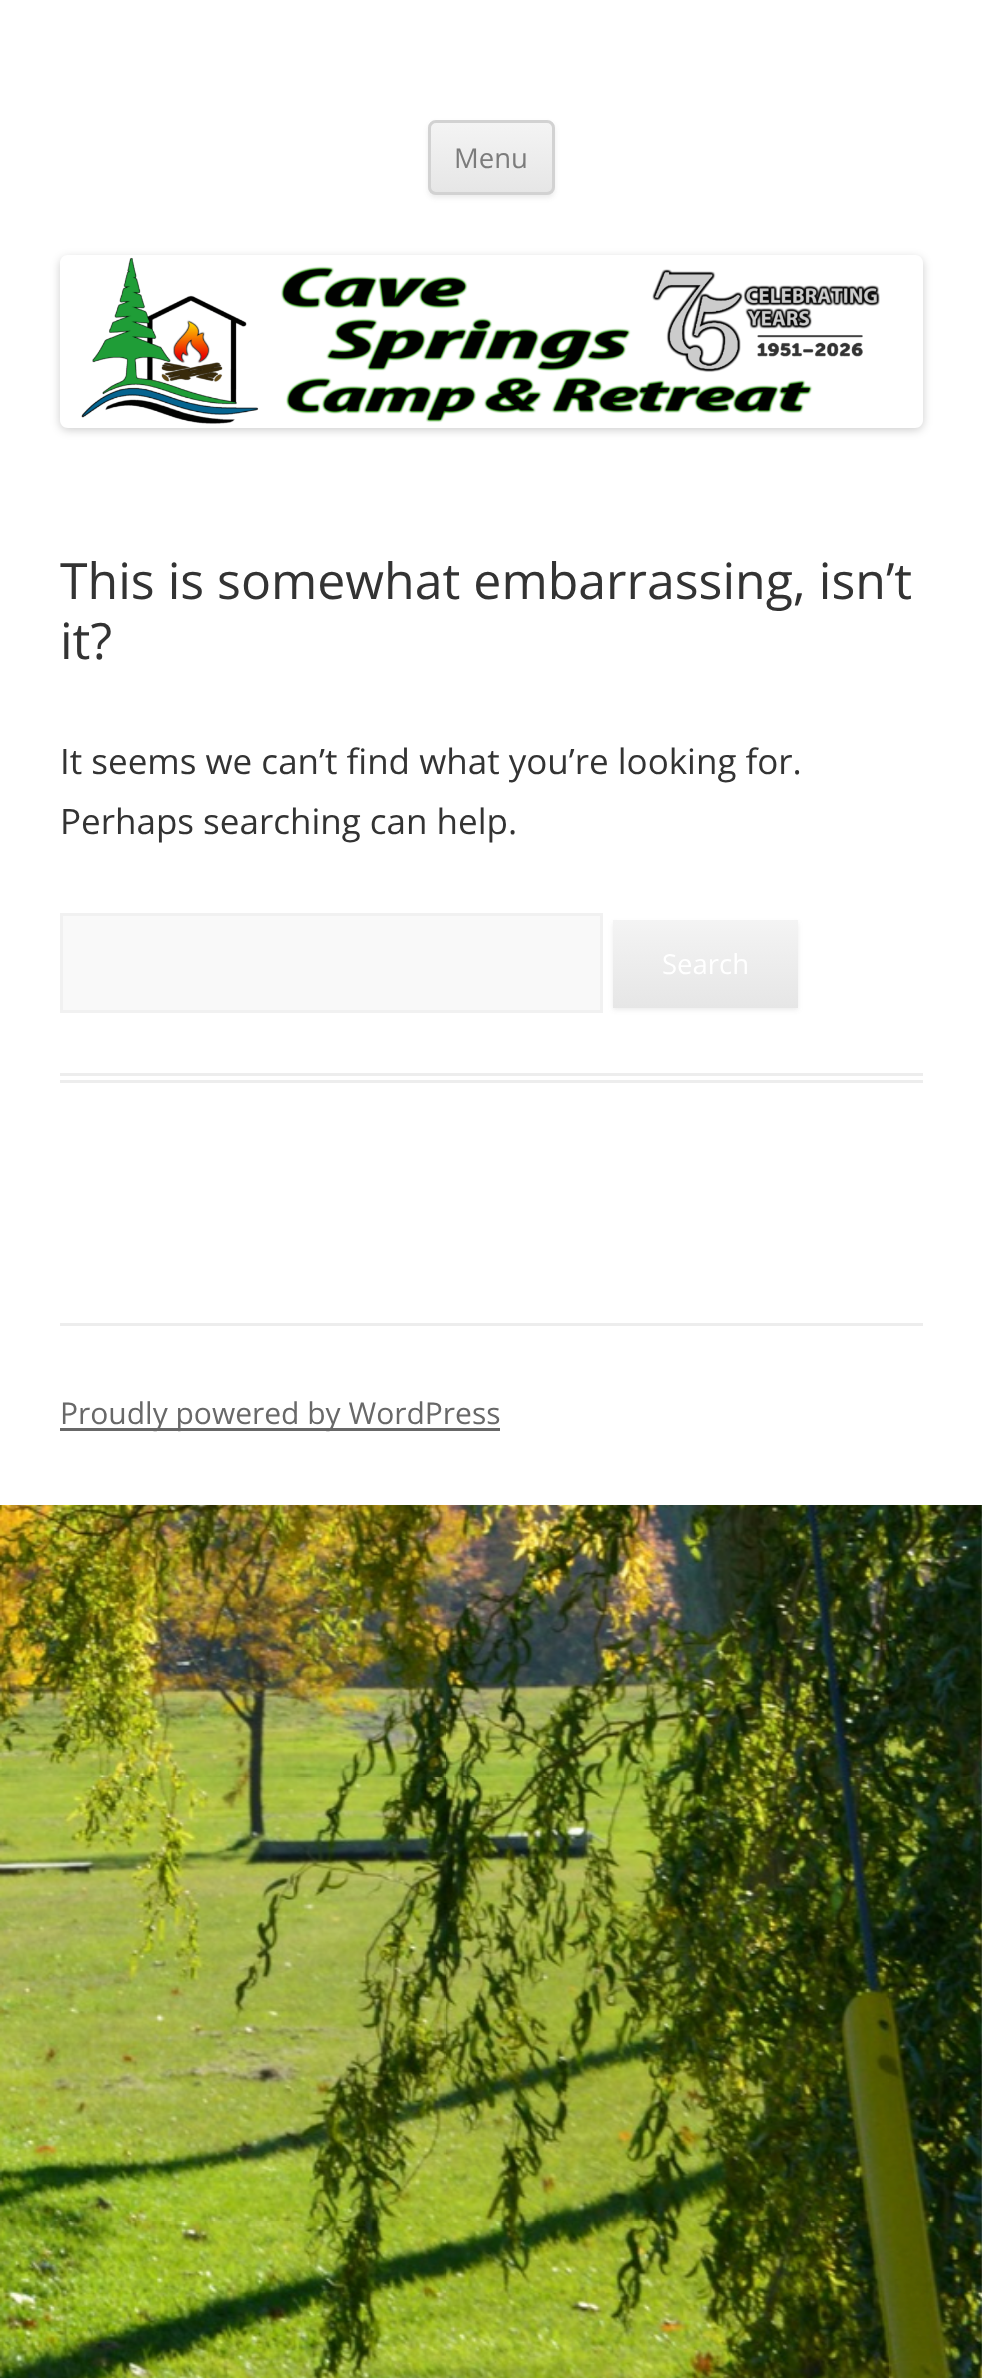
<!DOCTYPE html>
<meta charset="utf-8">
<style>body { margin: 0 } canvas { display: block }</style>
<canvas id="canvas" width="982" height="2378"></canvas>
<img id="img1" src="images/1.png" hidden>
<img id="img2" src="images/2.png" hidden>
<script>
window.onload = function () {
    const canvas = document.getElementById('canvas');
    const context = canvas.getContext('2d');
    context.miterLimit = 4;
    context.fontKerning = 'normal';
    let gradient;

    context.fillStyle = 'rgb(255, 255, 255)';
    context.fillRect(0, 0, 982, 2378);
    context.drawImage(document.getElementById('img1'), 0, 1505, 982, 873);
    context.fillStyle = 'rgba(64, 64, 64, 0.1)';
    context.filter = 'blur(2.5px)';
    context.beginPath();
    context.roundRect(428, 123, 127, 75, 8);
    context.fill();
    context.filter = 'none';
    context.save();
    context.beginPath();
    context.roundRect(428, 120, 127, 75, 8);
    context.clip();
    gradient = context.createLinearGradient(491, 123, 491, 193);
    gradient.addColorStop(0, 'rgb(244, 244, 244)');
    gradient.addColorStop(1, 'rgb(230, 230, 230)');
    context.fillStyle = gradient;
    context.fillRect(428, 123, 127, 70);
    context.restore();
    context.beginPath();
    context.roundRect(429.5, 121.5, 124, 72, 6.5);
    context.strokeStyle = 'rgb(210, 210, 210)';
    context.lineWidth = 3;
    context.stroke();
    context.save();
    context.beginPath();
    context.moveTo(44, 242);
    context.lineTo(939, 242);
    context.lineTo(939, 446);
    context.lineTo(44, 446);
    context.closePath();
    context.moveTo(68, 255);
    context.lineTo(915, 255);
    context.bezierCurveTo(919.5, 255, 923, 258.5, 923, 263);
    context.lineTo(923, 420);
    context.bezierCurveTo(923, 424.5, 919.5, 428, 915, 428);
    context.lineTo(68, 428);
    context.bezierCurveTo(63.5, 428, 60, 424.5, 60, 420);
    context.lineTo(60, 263);
    context.bezierCurveTo(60, 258.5, 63.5, 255, 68, 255);
    context.closePath();
    context.clip('evenodd');
    context.fillStyle = 'rgba(0, 0, 0, 0.2)';
    context.filter = 'blur(5px)';
    context.beginPath();
    context.roundRect(60, 258, 863, 172, 8);
    context.fill();
    context.filter = 'none';
    context.restore();
    context.drawImage(document.getElementById('img2'), 81, 257, 799, 167);
    context.fillStyle = 'rgb(237, 237, 237)';
    context.fillRect(60, 1073, 863, 3);
    context.fillRect(60, 1080, 863, 3);
    context.fillStyle = 'rgb(249, 249, 249)';
    context.beginPath();
    context.rect(61.5, 914.5, 540, 97);
    context.fill();
    context.strokeStyle = 'rgb(241, 241, 241)';
    context.stroke();
    context.fillStyle = 'rgba(64, 64, 64, 0.1)';
    context.filter = 'blur(2.5px)';
    context.beginPath();
    context.rect(613, 923, 185, 87);
    context.fill();
    context.filter = 'none';
    gradient = context.createLinearGradient(705, 920, 705, 1008);
    gradient.addColorStop(0, 'rgb(244, 244, 244)');
    gradient.addColorStop(1, 'rgb(230, 230, 230)');
    context.fillStyle = gradient;
    context.fillRect(613, 920, 185, 88);
    context.fillStyle = 'rgb(237, 237, 237)';
    context.fillRect(60, 1323, 863, 3);
    context.fillStyle = 'rgb(104, 104, 104)';
    context.fillRect(60, 1428, 440, 3);
    context.font = '27.5px Open Sans';
    context.fillStyle = 'rgb(124, 124, 124)';
    context.fillText('Menu', 454, 168);
    context.font = '50px Open Sans';
    context.fillStyle = 'rgb(51, 51, 51)';
    context.fillText('This is somewhat embarrassing, isn’t', 60, 599);
    context.fillText('it?', 60, 659);
    context.font = '35px Open Sans';
    context.fillText('It seems we can’t find what you’re looking for.', 60, 774);
    context.fillText('Perhaps searching can help.', 60, 834);
    context.font = '27.5px Open Sans';
    context.fillStyle = 'rgb(255, 255, 255)';
    context.fillText('Search', 662, 974);
    context.font = '30px Open Sans';
    context.fillStyle = 'rgb(104, 104, 104)';
    context.fillText('Proudly powered by WordPress', 60, 1424);
};
</script>
